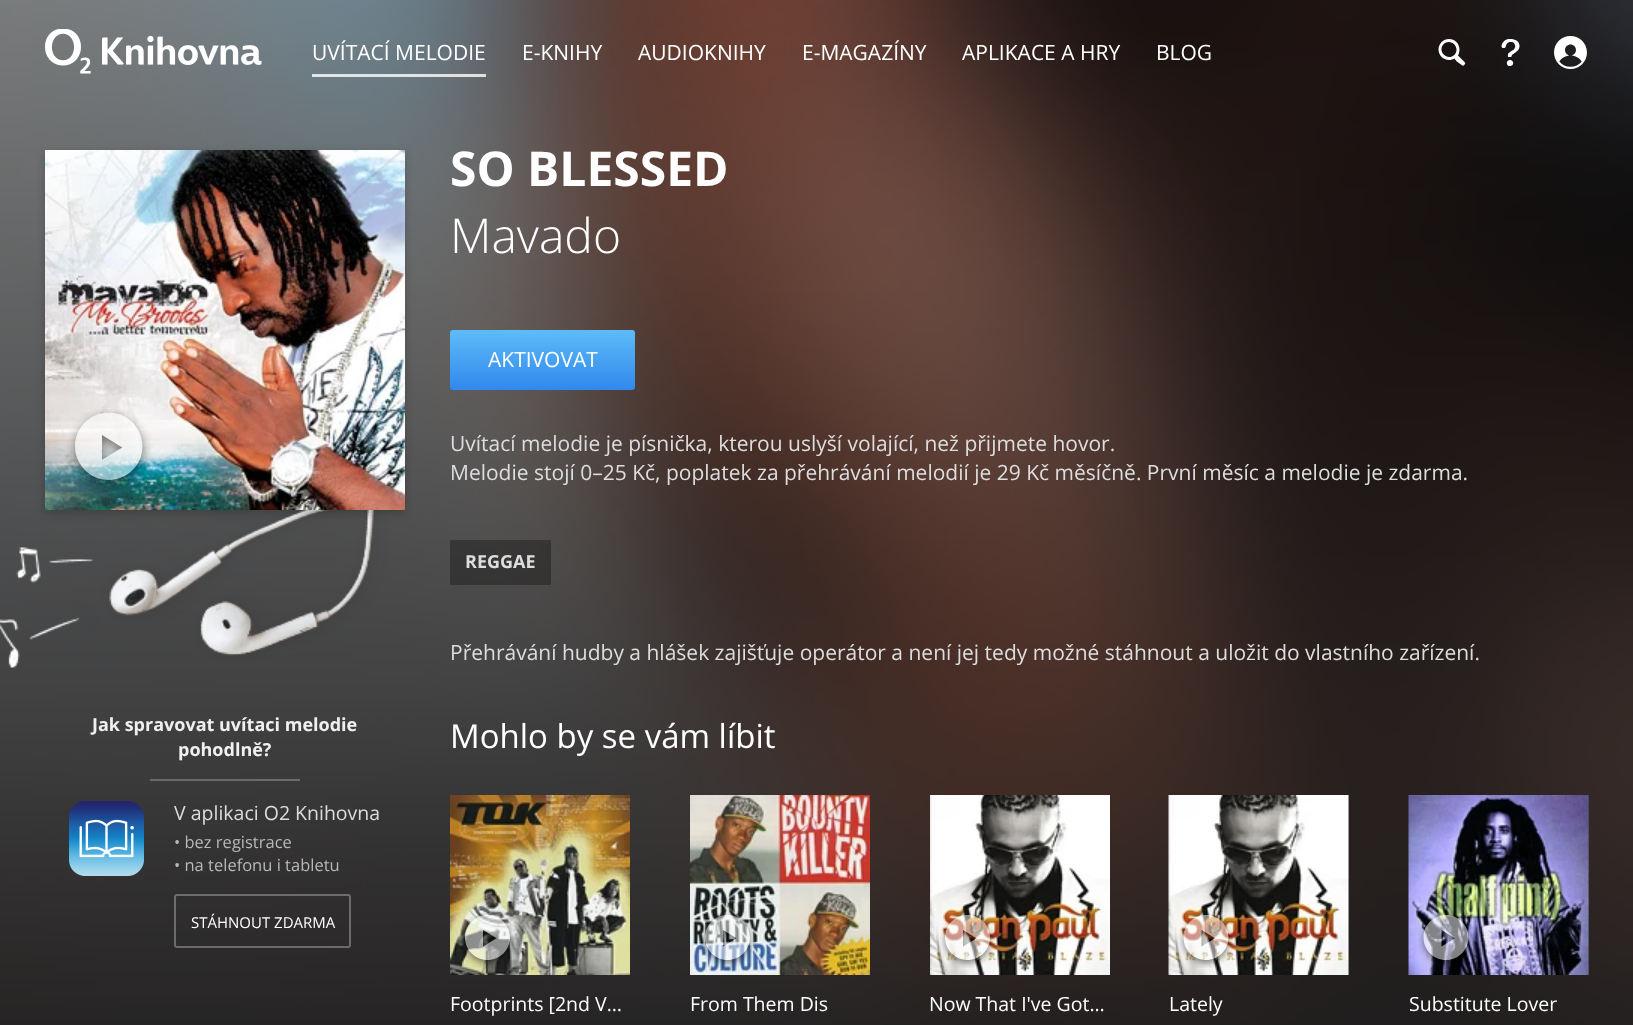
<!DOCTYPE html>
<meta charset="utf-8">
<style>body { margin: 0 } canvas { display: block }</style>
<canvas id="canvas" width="1633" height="1025"></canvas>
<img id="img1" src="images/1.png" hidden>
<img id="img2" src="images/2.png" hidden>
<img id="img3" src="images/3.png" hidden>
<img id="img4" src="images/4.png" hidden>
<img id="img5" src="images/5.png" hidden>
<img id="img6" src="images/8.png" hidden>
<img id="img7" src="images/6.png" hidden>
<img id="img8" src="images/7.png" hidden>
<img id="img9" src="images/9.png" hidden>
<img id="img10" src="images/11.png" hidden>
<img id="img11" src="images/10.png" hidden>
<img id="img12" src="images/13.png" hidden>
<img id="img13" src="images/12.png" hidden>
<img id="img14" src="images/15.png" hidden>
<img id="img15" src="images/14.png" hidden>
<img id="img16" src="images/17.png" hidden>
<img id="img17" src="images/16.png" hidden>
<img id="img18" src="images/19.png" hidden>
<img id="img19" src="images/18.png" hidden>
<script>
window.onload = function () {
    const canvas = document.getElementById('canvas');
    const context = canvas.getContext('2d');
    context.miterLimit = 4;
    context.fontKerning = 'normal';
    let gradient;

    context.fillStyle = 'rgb(255, 255, 255)';
    context.fillRect(0, 0, 1633, 1025);
    context.drawImage(document.getElementById('img1'), 0, 0, 1633, 1025);
    context.drawImage(document.getElementById('img2'), 45, 29, 217, 45);
    context.fillStyle = 'rgba(255, 255, 255, 0.8)';
    context.fillRect(312, 74, 174, 3);
    context.drawImage(document.getElementById('img3'), 1438, 39, 28, 27);
    context.drawImage(document.getElementById('img4'), 1501, 39, 19, 27);
    context.drawImage(document.getElementById('img5'), 1554, 36, 33, 33);
    context.drawImage(document.getElementById('img6'), 0, 510, 388, 158);
    context.fillStyle = 'rgba(0, 0, 0, 0.2)';
    context.filter = 'blur(4px)';
    context.beginPath();
    context.rect(45, 153, 360, 360);
    context.fill();
    context.filter = 'none';
    context.drawImage(document.getElementById('img7'), 45, 150, 360, 360);
    context.drawImage(document.getElementById('img8'), 67, 409, 84, 83);
    context.fillStyle = 'rgb(107, 107, 108)';
    context.fillRect(150, 779, 150, 2);
    context.drawImage(document.getElementById('img9'), 69, 801, 75, 75);
    context.beginPath();
    context.roundRect(175, 895, 175, 52, 2);
    context.strokeStyle = 'rgba(255, 255, 255, 0.3)';
    context.lineWidth = 2;
    context.stroke();
    gradient = context.createLinearGradient(542, 330, 542, 390);
    gradient.addColorStop(0, 'rgb(93, 188, 247)');
    gradient.addColorStop(1, 'rgb(49, 136, 237)');
    context.fillStyle = gradient;
    context.beginPath();
    context.roundRect(450, 330, 185, 60, 3);
    context.fill();
    context.fillStyle = 'rgba(0, 0, 0, 0.3)';
    context.beginPath();
    context.roundRect(450, 540, 101, 45, 1);
    context.fill();
    context.drawImage(document.getElementById('img10'), 450, 795, 180, 180);
    context.drawImage(document.getElementById('img11'), 460, 913, 55, 55);
    context.drawImage(document.getElementById('img12'), 690, 795, 180, 180);
    context.drawImage(document.getElementById('img13'), 700, 913, 55, 55);
    context.drawImage(document.getElementById('img14'), 930, 795, 180, 180);
    context.drawImage(document.getElementById('img15'), 940, 913, 55, 55);
    context.fillStyle = 'rgba(255, 255, 255, 0.1)';
    context.fillRect(1348, 795, 1, 180);
    context.drawImage(document.getElementById('img16'), 1168, 795, 181, 180);
    context.drawImage(document.getElementById('img17'), 1178, 913, 56, 55);
    context.fillRect(1588, 795, 1, 180);
    context.drawImage(document.getElementById('img18'), 1408, 795, 181, 180);
    context.drawImage(document.getElementById('img19'), 1418, 913, 56, 55);
    context.font = '21px Open Sans';
    context.fillStyle = 'rgb(255, 255, 255)';
    context.fillText('UVÍTACÍ MELODIE', 312, 60);
    context.fillText('E-KNIHY', 522, 60);
    context.fillText('AUDIOKNIHY', 638, 60);
    context.fillText('E-MAGAZÍNY', 802, 60);
    context.fillText('APLIKACE A HRY', 962, 60);
    context.fillText('BLOG', 1156, 60);
    context.font = 'bold 18px Open Sans';
    context.fillStyle = 'rgb(240, 240, 240)';
    context.fillText('Jak spravovat uvítaci melodie', 92, 731);
    context.fillText('pohodlně?', 178, 756);
    context.font = '19.5px Open Sans';
    context.fillStyle = 'rgb(221, 221, 221)';
    context.fillText('V aplikaci O2 Knihovna', 174, 820);
    context.font = '16.5px Open Sans';
    context.fillStyle = 'rgb(184, 184, 184)';
    context.fillText('• bez registrace', 174, 848);
    context.fillText('• na telefonu i tabletu', 174, 871);
    context.font = '15px Open Sans';
    context.fillStyle = 'rgb(255, 255, 255)';
    context.fillText('STÁHNOUT ZDARMA', 191, 928);
    context.font = 'bold 48px Open Sans';
    context.fillText('SO BLESSED', 450, 186);
    context.font = '300 48px Open Sans';
    context.fillText('Mavado', 450, 253);
    context.font = '21px Open Sans';
    context.fillText('AKTIVOVAT', 488, 367);
    context.fillStyle = 'rgb(221, 221, 221)';
    context.fillText('Uvítací melodie je písnička, kterou uslyší volající, než přijmete hovor.', 450, 451);
    context.fillText('Melodie stojí 0–25 Kč, poplatek za přehrávání melodií je 29 Kč měsíčně. První měsíc a melodie je zdarma.', 450, 480);
    context.font = 'bold 18px Open Sans';
    context.fillText('REGGAE', 465, 568);
    context.font = '21px Open Sans';
    context.fillText('Přehrávání hudby a hlášek zajišťuje operátor a není jej tedy možné stáhnout a uložit do vlastního zařízení.', 450, 660);
    context.font = '33px Open Sans';
    context.fillStyle = 'rgb(255, 255, 255)';
    context.fillText('Mohlo by se vám líbit', 450, 748);
    context.font = '19.5px Open Sans';
    context.fillText('Footprints [2nd V…', 450, 1011);
    context.fillText('From Them Dis', 690, 1011);
    context.fillText('Now That I\'ve Got…', 929, 1011);
    context.fillText('Lately', 1169, 1011);
    context.fillText('Substitute Lover', 1409, 1011);
};
</script>
